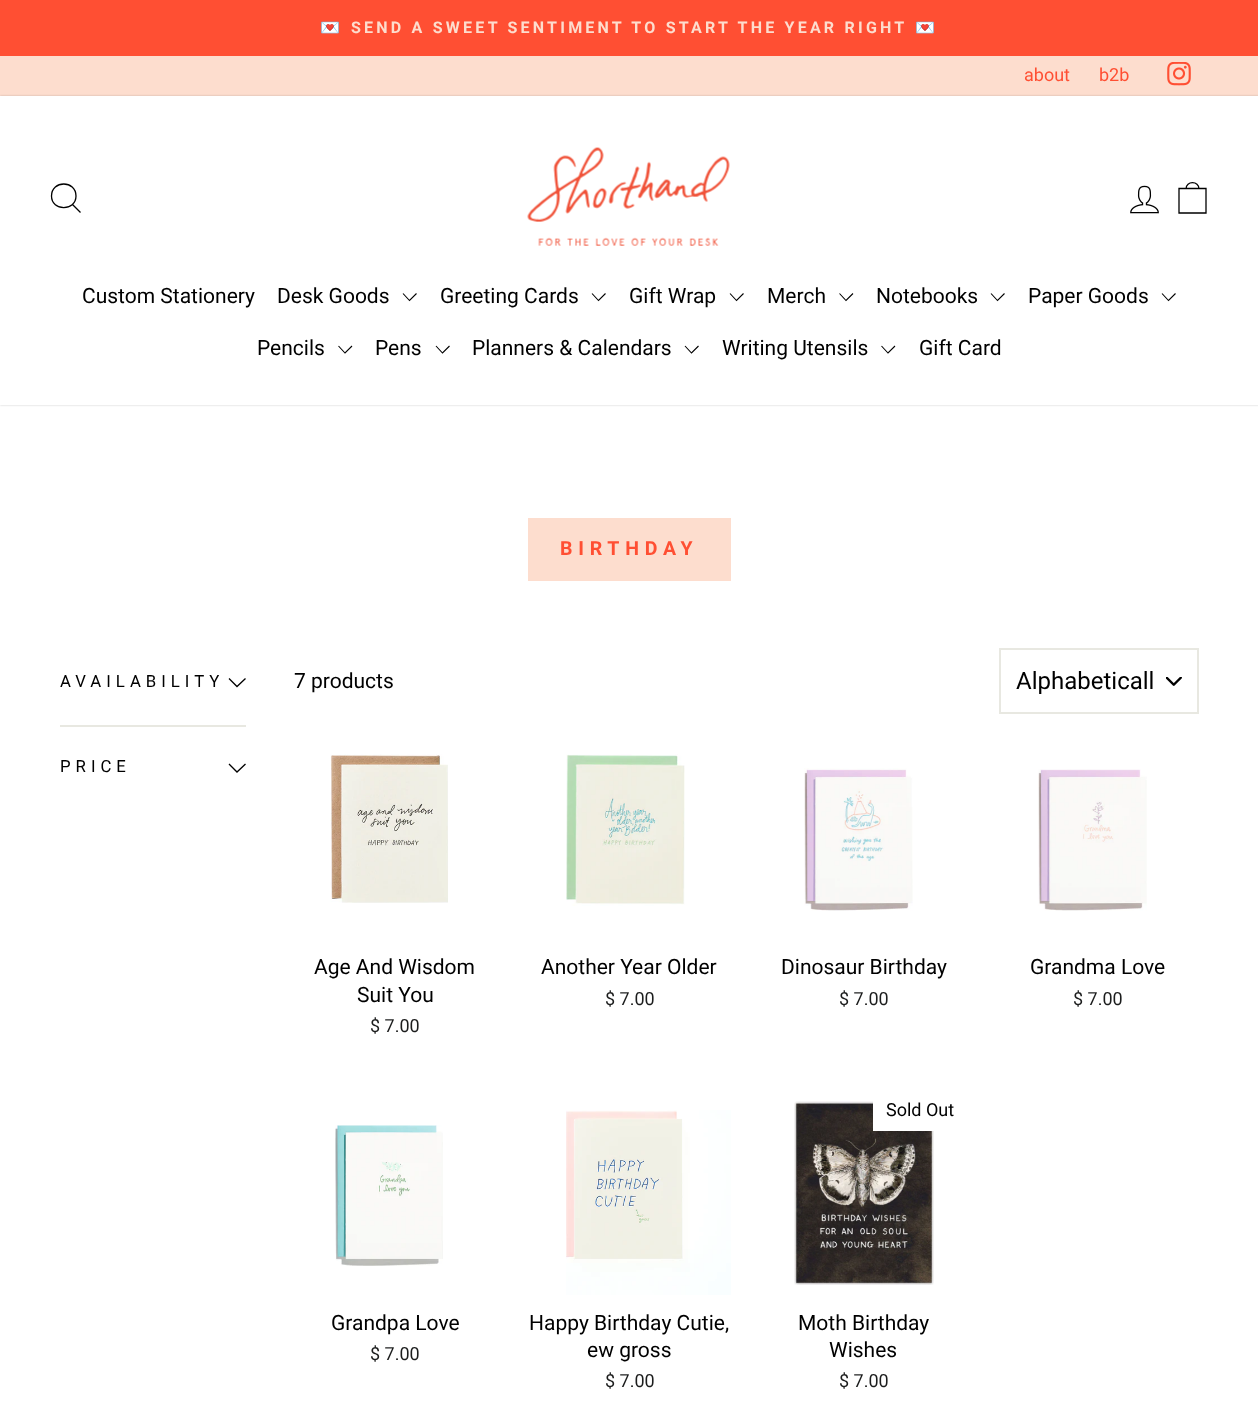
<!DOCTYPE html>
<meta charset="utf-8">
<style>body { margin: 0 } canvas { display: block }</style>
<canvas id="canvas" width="1258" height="1411"></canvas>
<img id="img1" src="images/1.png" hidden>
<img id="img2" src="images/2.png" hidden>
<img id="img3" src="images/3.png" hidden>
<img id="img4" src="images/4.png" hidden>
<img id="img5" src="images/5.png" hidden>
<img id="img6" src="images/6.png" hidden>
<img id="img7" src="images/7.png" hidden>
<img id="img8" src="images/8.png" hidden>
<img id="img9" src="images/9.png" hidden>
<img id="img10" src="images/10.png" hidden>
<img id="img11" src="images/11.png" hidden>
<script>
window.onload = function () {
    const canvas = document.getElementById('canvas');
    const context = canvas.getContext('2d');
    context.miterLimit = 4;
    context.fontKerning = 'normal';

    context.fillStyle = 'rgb(255, 255, 255)';
    context.fillRect(0, 0, 1258, 1411);
    context.fillStyle = 'rgb(255, 79, 51)';
    context.fillRect(0, 0, 1258, 56);
    context.fillStyle = 'rgb(253, 221, 206)';
    context.fillRect(0, 56, 1258, 40);
    context.drawImage(document.getElementById('img1'), 1167, 62, 24, 24);
    context.save();
    context.beginPath();
    context.moveTo(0, 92);
    context.lineTo(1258, 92);
    context.lineTo(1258, 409);
    context.lineTo(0, 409);
    context.closePath();
    context.moveTo(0, 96);
    context.lineTo(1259, 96);
    context.lineTo(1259, 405);
    context.lineTo(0, 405);
    context.closePath();
    context.clip('evenodd');
    context.fillStyle = 'rgba(0, 0, 0, 0.2)';
    context.filter = 'blur(1px)';
    context.beginPath();
    context.rect(0, 96, 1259, 309);
    context.fill();
    context.filter = 'none';
    context.restore();
    context.beginPath();
    context.moveTo(76, 196);
    context.bezierCurveTo(76, 211.5, 51.5, 211.5, 51.5, 196);
    context.bezierCurveTo(51.5, 180, 76, 180, 76, 196);
    context.closePath();
    context.moveTo(80.5, 212.5);
    context.lineTo(72.5, 204.5);
    context.strokeStyle = 'rgb(0, 0, 0)';
    context.lineWidth = 1.3;
    context.stroke();
    context.drawImage(document.getElementById('img2'), 527, 147, 203, 99);
    context.drawImage(document.getElementById('img3'), 1130, 185, 29, 29);
    context.beginPath();
    context.moveTo(1179, 188.5);
    context.lineTo(1206, 188.5);
    context.lineTo(1206, 213);
    context.lineTo(1179, 213);
    context.closePath();
    context.moveTo(1186, 189);
    context.bezierCurveTo(1186, 180.5, 1199, 180.5, 1199, 189);
    context.stroke();
    context.beginPath();
    context.moveTo(403, 293.5);
    context.lineTo(409.5, 300.5);
    context.lineTo(416.5, 293.5);
    context.lineWidth = 1.1;
    context.stroke();
    context.beginPath();
    context.moveTo(592, 293.5);
    context.lineTo(598.5, 300.5);
    context.lineTo(605.5, 293.5);
    context.stroke();
    context.beginPath();
    context.moveTo(730, 293.5);
    context.lineTo(736.5, 300.5);
    context.lineTo(743.5, 293.5);
    context.stroke();
    context.beginPath();
    context.moveTo(839.5, 293.5);
    context.lineTo(846, 300.5);
    context.lineTo(853, 293.5);
    context.stroke();
    context.beginPath();
    context.moveTo(991, 293.5);
    context.lineTo(997.5, 300.5);
    context.lineTo(1004.5, 293.5);
    context.stroke();
    context.beginPath();
    context.moveTo(1162, 293.5);
    context.lineTo(1168.5, 300.5);
    context.lineTo(1175.5, 293.5);
    context.stroke();
    context.beginPath();
    context.moveTo(338.5, 346);
    context.lineTo(345, 353);
    context.lineTo(352, 346);
    context.stroke();
    context.beginPath();
    context.moveTo(436, 346);
    context.lineTo(442.5, 353);
    context.lineTo(449.5, 346);
    context.stroke();
    context.beginPath();
    context.moveTo(685, 346);
    context.lineTo(691.5, 353);
    context.lineTo(698.5, 346);
    context.stroke();
    context.beginPath();
    context.moveTo(881.5, 346);
    context.lineTo(888, 353);
    context.lineTo(895, 346);
    context.stroke();
    context.fillRect(528, 518, 203, 63);
    context.beginPath();
    context.moveTo(229, 678.5);
    context.lineTo(237, 686.5);
    context.lineTo(245.5, 678.5);
    context.lineWidth = 1.3;
    context.stroke();
    context.fillStyle = 'rgb(232, 232, 225)';
    context.fillRect(60, 725, 186, 2);
    context.beginPath();
    context.moveTo(229, 764);
    context.lineTo(237, 772);
    context.lineTo(245.5, 764);
    context.stroke();
    context.drawImage(document.getElementById('img4'), 1166, 677, 16, 9);
    context.strokeStyle = 'rgb(232, 232, 225)';
    context.lineWidth = 2;
    context.strokeRect(1000, 649, 198, 64);
    context.drawImage(document.getElementById('img5'), 330, 754, 118, 149);
    context.drawImage(document.getElementById('img6'), 566, 754, 119, 152);
    context.drawImage(document.getElementById('img7'), 804, 768, 109, 143);
    context.drawImage(document.getElementById('img8'), 1038, 769, 109, 142);
    context.drawImage(document.getElementById('img9'), 335, 1125, 108, 141);
    context.drawImage(document.getElementById('img10'), 566, 1110, 165, 185);
    context.drawImage(document.getElementById('img11'), 794, 1101, 140, 184);
    context.fillStyle = 'rgb(255, 255, 255)';
    context.fillRect(873, 1101, 61, 30);
    context.letterSpacing = '3.2px';
    context.font = 'bold 16.05px Noto Color Emoji';
    context.fillStyle = 'rgb(253, 221, 206)';
    context.fillText('💌', 320, 33);
    context.font = 'bold 16.05px Roboto';
    context.fillText('SEND A SWEET SENTIMENT TO START THE YEAR RIGHT', 351, 33);
    context.font = 'bold 16.05px Noto Color Emoji';
    context.fillText('💌', 915, 33);
    context.letterSpacing = '0px';
    context.font = '18px Roboto';
    context.fillStyle = 'rgb(255, 79, 51)';
    context.fillText('about', 1024, 81);
    context.fillText('b2b', 1099, 81);
    context.font = '21px Roboto';
    context.fillStyle = 'rgb(0, 0, 0)';
    context.fillText('Custom Stationery', 82, 303);
    context.fillText('Desk Goods', 277, 303);
    context.fillText('Greeting Cards', 440, 303);
    context.fillText('Gift Wrap', 629, 303);
    context.fillText('Merch', 767, 303);
    context.fillText('Notebooks', 876, 303);
    context.fillText('Paper Goods', 1028, 303);
    context.fillText('Pencils', 257, 355);
    context.fillText('Pens', 375, 355);
    context.fillText('Planners & Calendars', 472, 355);
    context.fillText('Writing Utensils', 722, 355);
    context.fillText('Gift Card', 919, 355);
    context.letterSpacing = '5.75px';
    context.font = 'bold 19.5px Roboto';
    context.fillStyle = 'rgb(255, 79, 51)';
    context.fillText('BIRTHDAY', 560, 555);
    context.letterSpacing = '5px';
    context.font = '16.75px Roboto';
    context.fillStyle = 'rgb(0, 0, 0)';
    context.fillText('AVAILABILITY', 60, 687);
    context.fillText('PRICE', 60, 772);
    context.letterSpacing = '0px';
    context.font = '21px Roboto';
    context.fillText('7 products', 294, 688);
    context.font = '24px Roboto';
    context.fillText('Alphabeticall', 1016, 689);
    context.font = '21px Roboto';
    context.fillText('Age And Wisdom', 314, 974);
    context.fillText('Suit You', 357, 1002);
    context.font = '18px Roboto';
    context.fillStyle = 'rgb(28, 29, 29)';
    context.fillText('$ 7.00', 370, 1032);
    context.font = '21px Roboto';
    context.fillStyle = 'rgb(0, 0, 0)';
    context.fillText('Another Year Older', 541, 974);
    context.font = '18px Roboto';
    context.fillStyle = 'rgb(28, 29, 29)';
    context.fillText('$ 7.00', 605, 1005);
    context.font = '21px Roboto';
    context.fillStyle = 'rgb(0, 0, 0)';
    context.fillText('Dinosaur Birthday', 781, 974);
    context.font = '18px Roboto';
    context.fillStyle = 'rgb(28, 29, 29)';
    context.fillText('$ 7.00', 839, 1005);
    context.font = '21px Roboto';
    context.fillStyle = 'rgb(0, 0, 0)';
    context.fillText('Grandma Love', 1030, 974);
    context.font = '18px Roboto';
    context.fillStyle = 'rgb(28, 29, 29)';
    context.fillText('$ 7.00', 1073, 1005);
    context.font = '21px Roboto';
    context.fillStyle = 'rgb(0, 0, 0)';
    context.fillText('Grandpa Love', 331, 1330);
    context.font = '18px Roboto';
    context.fillStyle = 'rgb(28, 29, 29)';
    context.fillText('$ 7.00', 370, 1360);
    context.font = '21px Roboto';
    context.fillStyle = 'rgb(0, 0, 0)';
    context.fillText('Happy Birthday Cutie,', 529, 1330);
    context.fillText('ew gross', 587, 1357);
    context.font = '18px Roboto';
    context.fillStyle = 'rgb(28, 29, 29)';
    context.fillText('$ 7.00', 605, 1387);
    context.fillStyle = 'rgb(0, 0, 0)';
    context.fillText('Sold Out', 886, 1116);
    context.font = '21px Roboto';
    context.fillText('Moth Birthday', 798, 1330);
    context.fillText('Wishes', 829, 1357);
    context.font = '18px Roboto';
    context.fillStyle = 'rgb(28, 29, 29)';
    context.fillText('$ 7.00', 839, 1387);
};
</script>
